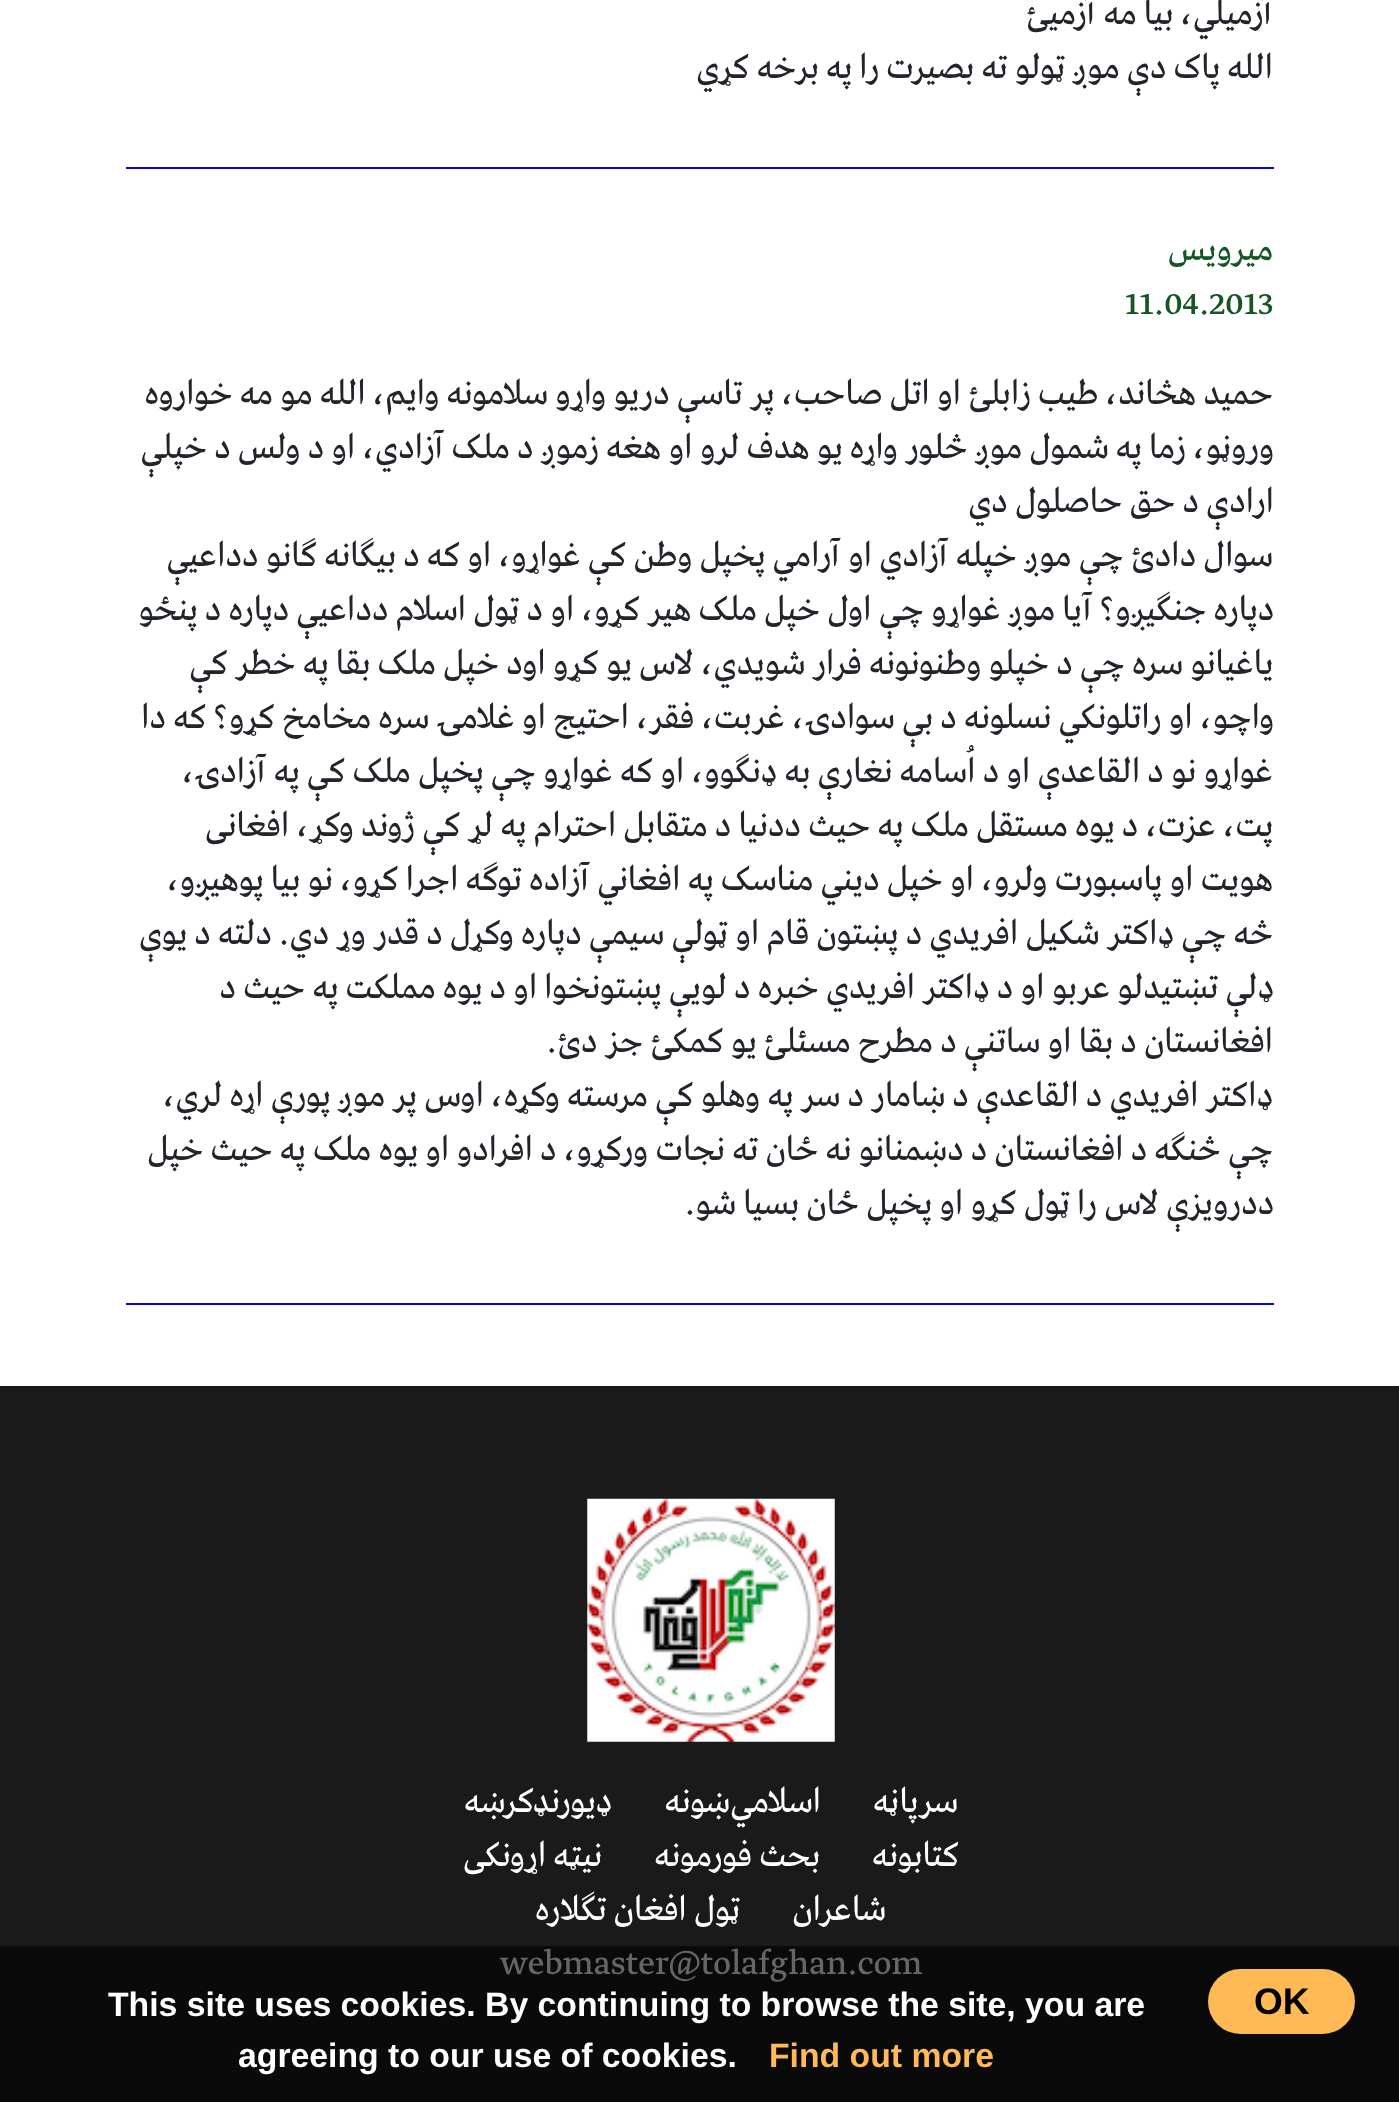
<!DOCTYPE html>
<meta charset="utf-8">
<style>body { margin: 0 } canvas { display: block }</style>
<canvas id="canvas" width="1399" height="2102"></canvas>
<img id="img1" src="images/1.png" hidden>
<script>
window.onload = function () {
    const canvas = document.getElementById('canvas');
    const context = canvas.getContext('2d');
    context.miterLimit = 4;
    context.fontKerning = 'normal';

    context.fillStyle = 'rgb(255, 255, 255)';
    context.fillRect(0, 0, 1399, 2102);
    context.fillStyle = 'rgb(0, 0, 255)';
    context.fillRect(126, 167, 1148, 2);
    context.fillRect(126, 1303, 1148, 2);
    context.fillStyle = 'rgb(26, 26, 26)';
    context.fillRect(0, 1386, 1399, 560);
    context.fillStyle = 'rgb(10, 10, 10)';
    context.fillRect(0, 1946, 1399, 156);
    context.drawImage(document.getElementById('img1'), 587, 1498, 248, 244);
    context.fillStyle = 'rgb(255, 186, 85)';
    context.beginPath();
    context.roundRect(1208, 1969, 147, 65, 32.5);
    context.fill();
    context.direction = 'rtl';
    context.font = '36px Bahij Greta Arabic';
    context.fillStyle = 'rgb(33, 37, 41)';
    context.fillText('آزمیلي، بیا مه آزمیئ', 1273, 24);
    context.fillText('الله پاک دې موږ ټولو ته بصیرت را په برخه کړي', 1273, 78);
    context.fillStyle = 'rgb(21, 87, 36)';
    context.fillText('میرویس', 1273, 260);
    context.direction = 'ltr';
    context.fillText('11.04.2013', 1125, 314);
    context.direction = 'rtl';
    context.fillStyle = 'rgb(33, 37, 41)';
    context.fillText('حمید هڅاند، طیب زابلئ او اتل صاحب، پر تاسې دریو واړو سلامونه وایم، الله مو مه خواروه', 1273, 404);
    context.fillText('وروڼو، زما په شمول موږ څلور واړه یو هدف لرو او هغه زموږ د ملک آزادي، او د ولس د خپلې', 1274, 458);
    context.fillText('ارادې د حق حاصلول دي', 1274, 512);
    context.fillText('سوال دادئ چې موږ خپله آزادي او آرامي پخپل وطن کې غواړو، او که د بیګانه ګانو دداعیې', 1273, 566);
    context.fillText('دپاره جنګیږو؟ آیا موږ غواړو چې اول خپل ملک هیر کړو، او د ټول اسلام دداعیې دپاره د پنځو', 1274, 620);
    context.fillText('یاغیانو سره چې د خپلو وطنونونه فرار شويدي، لاس یو کړو اود خپل ملک بقا په خطر کې', 1273, 674);
    context.fillText('واچو، او راتلونکي نسلونه د بې سوادۍ، غربت، فقر، احتیج او غلامۍ سره مخامخ کړو؟ که دا', 1274, 728);
    context.fillText('غواړو نو د القاعدې او د اُسامه نغارې به ډنګوو، او که غواړو چې پخپل ملک کې په آزادۍ،', 1273, 782);
    context.fillText('پت، عزت، د یوه مستقل ملک په حیث ددنیا د متقابل احترام په لړ کې ژوند وکړ، افغانی', 1273, 836);
    context.fillText('هویت او پاسبورت ولرو، او خپل دیني مناسک په افغاني آزاده توګه اجرا کړو، نو بیا پوهیږو،', 1273, 890);
    context.fillText('څه چې ډاکتر شکیل افریدي د پښتون قام او ټولې سیمې دپاره وکړل د قدر وړ دي. دلته د یوې', 1273, 944);
    context.fillText('ډلې تښتیدلو عربو او د ډاکتر افریدي خبره د لویې پښتونخوا او د یوه مملکت په حیث د', 1274, 998);
    context.fillText('افغانستان د بقا او ساتنې د مطرح مسئلئ یو کمکئ جز دئ.', 1273, 1052);
    context.fillText('ډاکتر افریدي د القاعدې د ښامار د سر په وهلو کې مرسته وکړه، اوس پر موږ پورې اړه لري،', 1273, 1106);
    context.fillText('چې څنګه د افغانستان د دښمنانو نه ځان ته نجات ورکړو، د افرادو او یوه ملک په حیث خپل', 1273, 1160);
    context.fillText('ددرویزې لاس را ټول کړو او پخپل ځان بسیا شو.', 1274, 1214);
    context.fillStyle = 'rgb(255, 255, 255)';
    context.fillText('سرپاڼه', 958, 1812);
    context.fillText('اسلامي‌ښونه', 821, 1812);
    context.fillText('ډیورنډ‌کرښه', 612, 1812);
    context.fillText('کتابونه', 959, 1866);
    context.fillText('بحث فورمونه', 820, 1866);
    context.fillText('نيټه اړونکی', 602, 1866);
    context.fillText('شاعران', 886, 1920);
    context.fillText('ټول افغان تګلاره', 740, 1920);
    context.direction = 'ltr';
    context.fillStyle = 'rgb(102, 102, 102)';
    context.fillText('webmaster@tolafghan.com', 500, 1974);
    context.font = 'bold 37px Liberation Sans';
    context.fillStyle = 'rgb(0, 0, 0)';
    context.fillText('OK', 1254, 2014);
    context.font = 'bold 33.75px Liberation Sans';
    context.fillStyle = 'rgb(255, 255, 255)';
    context.fillText('This site uses cookies. By continuing to browse the site, you are', 108, 2016);
    context.fillStyle = 'rgb(255, 186, 85)';
    context.fillText('Find out more', 769, 2067);
    context.fillStyle = 'rgb(255, 255, 255)';
    context.fillText('agreeing to our use of cookies.', 238, 2067);
};
</script>
